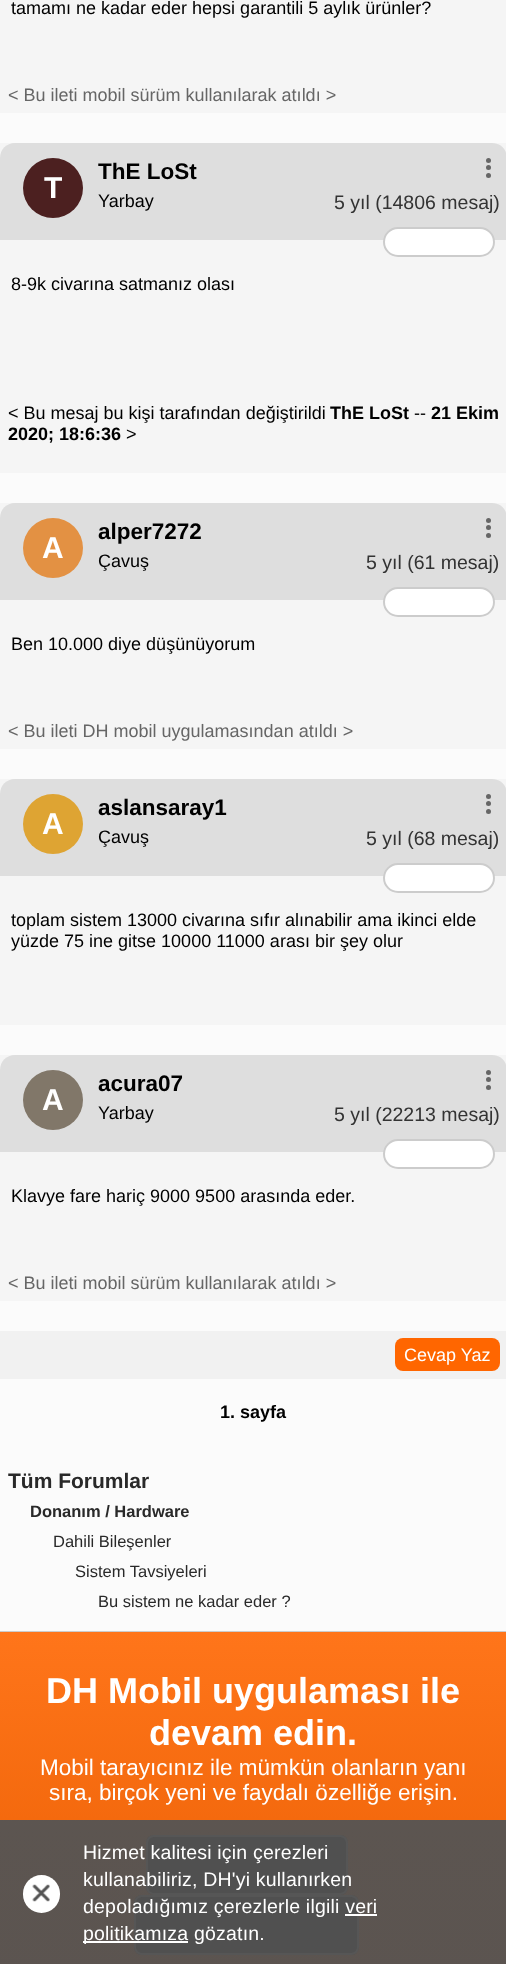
<!DOCTYPE html>
<meta charset="utf-8">
<style>body { margin: 0 } canvas { display: block }</style>
<canvas id="canvas" width="506" height="1964"></canvas>
<img id="img1" src="images/1.png" hidden>
<script>
window.onload = function () {
    const canvas = document.getElementById('canvas');
    const context = canvas.getContext('2d');
    context.miterLimit = 4;
    context.fontKerning = 'normal';
    let gradient;

    context.fillStyle = 'rgb(251, 251, 251)';
    context.fillRect(0, 0, 506, 1964);
    context.fillStyle = 'rgb(204, 204, 204)';
    context.fillRect(0, 1631, 506, 1);
    context.fillStyle = 'rgb(245, 245, 245)';
    context.fillRect(0, 0, 506, 113);
    context.fillRect(0, 143, 506, 330);
    context.fillStyle = 'rgb(222, 222, 222)';
    context.beginPath();
    context.moveTo(15, 143);
    context.lineTo(492, 143);
    context.bezierCurveTo(500.5, 143, 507, 149.5, 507, 158);
    context.lineTo(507, 240);
    context.lineTo(0, 240);
    context.lineTo(0, 158);
    context.bezierCurveTo(0, 149.5, 6.5, 143, 15, 143);
    context.closePath();
    context.fill();
    context.fillStyle = 'rgb(102, 102, 102)';
    context.beginPath();
    context.arc(488.5, 167.5, 2.5, 0, 2 * Math.PI);
    context.fill();
    context.beginPath();
    context.arc(488.5, 160.5, 2.5, 0, 2 * Math.PI);
    context.fill();
    context.beginPath();
    context.arc(488.5, 175.5, 2.5, 0, 2 * Math.PI);
    context.fill();
    context.fillStyle = 'rgb(76, 32, 32)';
    context.beginPath();
    context.arc(53, 188, 30, 0, 2 * Math.PI);
    context.fill();
    context.fillStyle = 'rgb(255, 255, 255)';
    context.beginPath();
    context.roundRect(384, 228, 110, 28, 14);
    context.fill();
    context.strokeStyle = 'rgb(204, 204, 204)';
    context.lineWidth = 2;
    context.stroke();
    context.fillStyle = 'rgb(245, 245, 245)';
    context.fillRect(0, 503, 506, 246);
    context.fillStyle = 'rgb(222, 222, 222)';
    context.beginPath();
    context.moveTo(15, 503);
    context.lineTo(492, 503);
    context.bezierCurveTo(500.5, 503, 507, 509.5, 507, 518);
    context.lineTo(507, 600);
    context.lineTo(0, 600);
    context.lineTo(0, 518);
    context.bezierCurveTo(0, 509.5, 6.5, 503, 15, 503);
    context.closePath();
    context.fill();
    context.fillStyle = 'rgb(102, 102, 102)';
    context.beginPath();
    context.arc(488.5, 527.5, 2.5, 0, 2 * Math.PI);
    context.fill();
    context.beginPath();
    context.arc(488.5, 520.5, 2.5, 0, 2 * Math.PI);
    context.fill();
    context.beginPath();
    context.arc(488.5, 535.5, 2.5, 0, 2 * Math.PI);
    context.fill();
    context.fillStyle = 'rgb(227, 145, 67)';
    context.beginPath();
    context.arc(53, 548, 30, 0, 2 * Math.PI);
    context.fill();
    context.fillStyle = 'rgb(255, 255, 255)';
    context.beginPath();
    context.roundRect(384, 588, 110, 28, 14);
    context.fill();
    context.stroke();
    context.fillStyle = 'rgb(245, 245, 245)';
    context.fillRect(0, 779, 506, 246);
    context.fillStyle = 'rgb(222, 222, 222)';
    context.beginPath();
    context.moveTo(15, 779);
    context.lineTo(492, 779);
    context.bezierCurveTo(500.5, 779, 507, 785.5, 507, 794);
    context.lineTo(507, 876);
    context.lineTo(0, 876);
    context.lineTo(0, 794);
    context.bezierCurveTo(0, 785.5, 6.5, 779, 15, 779);
    context.closePath();
    context.fill();
    context.fillStyle = 'rgb(102, 102, 102)';
    context.beginPath();
    context.arc(488.5, 803.5, 2.5, 0, 2 * Math.PI);
    context.fill();
    context.beginPath();
    context.arc(488.5, 796.5, 2.5, 0, 2 * Math.PI);
    context.fill();
    context.beginPath();
    context.arc(488.5, 811.5, 2.5, 0, 2 * Math.PI);
    context.fill();
    context.fillStyle = 'rgb(222, 164, 51)';
    context.beginPath();
    context.arc(53, 824, 30, 0, 2 * Math.PI);
    context.fill();
    context.fillStyle = 'rgb(255, 255, 255)';
    context.beginPath();
    context.roundRect(384, 864, 110, 28, 14);
    context.fill();
    context.stroke();
    context.fillStyle = 'rgb(245, 245, 245)';
    context.fillRect(0, 1055, 506, 246);
    context.fillStyle = 'rgb(222, 222, 222)';
    context.beginPath();
    context.moveTo(15, 1055);
    context.lineTo(492, 1055);
    context.bezierCurveTo(500.5, 1055, 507, 1061.5, 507, 1070);
    context.lineTo(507, 1152);
    context.lineTo(0, 1152);
    context.lineTo(0, 1070);
    context.bezierCurveTo(0, 1061.5, 6.5, 1055, 15, 1055);
    context.closePath();
    context.fill();
    context.fillStyle = 'rgb(102, 102, 102)';
    context.beginPath();
    context.arc(488.5, 1079.5, 2.5, 0, 2 * Math.PI);
    context.fill();
    context.beginPath();
    context.arc(488.5, 1072.5, 2.5, 0, 2 * Math.PI);
    context.fill();
    context.beginPath();
    context.arc(488.5, 1087.5, 2.5, 0, 2 * Math.PI);
    context.fill();
    context.fillStyle = 'rgb(129, 119, 105)';
    context.beginPath();
    context.arc(53, 1100, 30, 0, 2 * Math.PI);
    context.fill();
    context.fillStyle = 'rgb(255, 255, 255)';
    context.beginPath();
    context.roundRect(384, 1140, 110, 28, 14);
    context.fill();
    context.stroke();
    context.fillStyle = 'rgb(241, 241, 241)';
    context.fillRect(0, 1331, 506, 48);
    context.fillStyle = 'rgb(255, 102, 0)';
    context.beginPath();
    context.roundRect(395, 1338, 105, 33, 8);
    context.fill();
    gradient = context.createLinearGradient(254, 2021, 254, 1632);
    gradient.addColorStop(0, 'rgb(232, 93, 1)');
    gradient.addColorStop(1, 'rgb(255, 117, 26)');
    context.fillStyle = gradient;
    context.fillRect(0, 1632, 506, 188);
    gradient = context.createLinearGradient(254, 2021, 254, 1632);
    gradient.addColorStop(0, 'rgb(91, 84, 80)');
    gradient.addColorStop(1, 'rgb(93, 86, 81)');
    context.fillStyle = gradient;
    context.fillRect(0, 1820, 506, 144);
    context.fillStyle = 'rgb(80, 80, 80)';
    context.beginPath();
    context.roundRect(146, 1835, 202, 60, 8);
    context.fill();
    context.beginPath();
    context.roundRect(147, 1836, 200, 58, 7);
    context.strokeStyle = 'rgba(93, 93, 93, 0.54)';
    context.stroke();
    context.beginPath();
    context.roundRect(134, 1895, 225, 60, 8);
    context.fill();
    context.beginPath();
    context.roundRect(135, 1896, 223, 58, 7);
    context.stroke();
    context.fillStyle = 'rgb(255, 255, 255)';
    context.beginPath();
    context.roundRect(23, 1875, 37, 38, 18.5);
    context.fill();
    context.drawImage(document.getElementById('img1'), 32, 1884, 18, 18);
    context.fillRect(345, 1914, 32, 2);
    context.fillRect(83, 1941, 105, 2);
    context.font = '18px Liberation Sans';
    context.fillStyle = 'rgb(0, 0, 0)';
    context.fillText('tamamı ne kadar eder hepsi garantili 5 aylık ürünler?', 11, 14);
    context.fillStyle = 'rgb(102, 102, 102)';
    context.fillText('< Bu ileti mobil sürüm kullanılarak atıldı >', 8, 101);
    context.font = 'bold 22.5px Liberation Sans';
    context.fillStyle = 'rgb(0, 0, 0)';
    context.fillText('ThE LoSt', 98, 179);
    context.letterSpacing = '-1px';
    context.font = 'bold 30px Liberation Sans';
    context.fillStyle = 'rgb(255, 255, 255)';
    context.fillText('T', 44, 198);
    context.letterSpacing = '0px';
    context.font = '18px Liberation Sans';
    context.fillStyle = 'rgb(0, 0, 0)';
    context.fillText('Yarbay', 98, 207);
    context.font = '19.5px Liberation Sans';
    context.fillStyle = 'rgb(51, 51, 51)';
    context.fillText('5 yıl (14806 mesaj)', 334, 209);
    context.font = '18px Liberation Sans';
    context.fillStyle = 'rgb(0, 0, 0)';
    context.fillText('8-9k civarına satmanız olası', 11, 290);
    context.fillText('< Bu mesaj bu kişi tarafından değiştirildi', 8, 419);
    context.font = 'bold 18px Liberation Sans';
    context.fillText('ThE LoSt', 330, 419);
    context.font = '18px Liberation Sans';
    context.fillText('--', 414, 419);
    context.font = 'bold 18px Liberation Sans';
    context.fillText('21 Ekim', 431, 419);
    context.fillText('2020; 18:6:36', 8, 440);
    context.font = '18px Liberation Sans';
    context.fillText('>', 126, 440);
    context.font = 'bold 22.5px Liberation Sans';
    context.fillText('alper7272', 98, 539);
    context.letterSpacing = '-1px';
    context.font = 'bold 30px Liberation Sans';
    context.fillStyle = 'rgb(255, 255, 255)';
    context.fillText('A', 42, 558);
    context.letterSpacing = '0px';
    context.font = '18px Liberation Sans';
    context.fillStyle = 'rgb(0, 0, 0)';
    context.fillText('Çavuş', 98, 567);
    context.font = '19.5px Liberation Sans';
    context.fillStyle = 'rgb(51, 51, 51)';
    context.fillText('5 yıl (61 mesaj)', 366, 569);
    context.font = '18px Liberation Sans';
    context.fillStyle = 'rgb(0, 0, 0)';
    context.fillText('Ben 10.000 diye düşünüyorum', 11, 650);
    context.fillStyle = 'rgb(102, 102, 102)';
    context.fillText('< Bu ileti DH mobil uygulamasından atıldı >', 8, 737);
    context.font = 'bold 22.5px Liberation Sans';
    context.fillStyle = 'rgb(0, 0, 0)';
    context.fillText('aslansaray1', 98, 815);
    context.letterSpacing = '-1px';
    context.font = 'bold 30px Liberation Sans';
    context.fillStyle = 'rgb(255, 255, 255)';
    context.fillText('A', 42, 834);
    context.letterSpacing = '0px';
    context.font = '18px Liberation Sans';
    context.fillStyle = 'rgb(0, 0, 0)';
    context.fillText('Çavuş', 98, 843);
    context.font = '19.5px Liberation Sans';
    context.fillStyle = 'rgb(51, 51, 51)';
    context.fillText('5 yıl (68 mesaj)', 366, 845);
    context.font = '18px Liberation Sans';
    context.fillStyle = 'rgb(0, 0, 0)';
    context.fillText('toplam sistem 13000 civarına sıfır alınabilir ama ikinci elde', 11, 926);
    context.fillText('yüzde 75 ine gitse 10000 11000 arası bir şey olur', 11, 947);
    context.font = 'bold 22.5px Liberation Sans';
    context.fillText('acura07', 98, 1091);
    context.letterSpacing = '-1px';
    context.font = 'bold 30px Liberation Sans';
    context.fillStyle = 'rgb(255, 255, 255)';
    context.fillText('A', 42, 1110);
    context.letterSpacing = '0px';
    context.font = '18px Liberation Sans';
    context.fillStyle = 'rgb(0, 0, 0)';
    context.fillText('Yarbay', 98, 1119);
    context.font = '19.5px Liberation Sans';
    context.fillStyle = 'rgb(51, 51, 51)';
    context.fillText('5 yıl (22213 mesaj)', 334, 1121);
    context.font = '18px Liberation Sans';
    context.fillStyle = 'rgb(0, 0, 0)';
    context.fillText('Klavye fare hariç 9000 9500 arasında eder.', 11, 1202);
    context.fillStyle = 'rgb(102, 102, 102)';
    context.fillText('< Bu ileti mobil sürüm kullanılarak atıldı >', 8, 1289);
    context.fillStyle = 'rgb(255, 255, 255)';
    context.fillText('Cevap Yaz', 404, 1361);
    context.font = 'bold 18px Liberation Sans';
    context.fillStyle = 'rgb(0, 0, 0)';
    context.fillText('1. sayfa', 220, 1418);
    context.font = 'bold 21px Liberation Sans';
    context.fillStyle = 'rgb(41, 41, 41)';
    context.fillText('Tüm Forumlar', 8, 1488);
    context.font = 'bold 16.5px Liberation Sans';
    context.fillText('Donanım / Hardware', 30, 1517);
    context.font = '16.5px Liberation Sans';
    context.fillText('Dahili Bileşenler', 53, 1547);
    context.fillText('Sistem Tavsiyeleri', 75, 1577);
    context.fillText('Bu sistem ne kadar eder ?', 98, 1607);
    context.font = 'bold 36px Liberation Sans';
    context.fillStyle = 'rgb(255, 255, 255)';
    context.fillText('DH Mobil uygulaması ile', 46, 1703);
    context.fillText('devam edin.', 149, 1745);
    context.font = '22.5px Liberation Sans';
    context.fillText('Mobil tarayıcınız ile mümkün olanların yanı', 40, 1775);
    context.fillText('sıra, birçok yeni ve faydalı özelliğe erişin.', 49, 1800);
    context.letterSpacing = '0.2px';
    context.font = '19.5px Liberation Sans';
    context.fillText('Hizmet kalitesi için çerezleri', 83, 1859);
    context.fillText('kullanabiliriz, DH\'yi kullanırken', 83, 1886);
    context.fillText('depoladığımız çerezlerle ilgili veri', 83, 1913);
    context.fillText('politikamıza gözatın.', 83, 1940);
};
</script>
